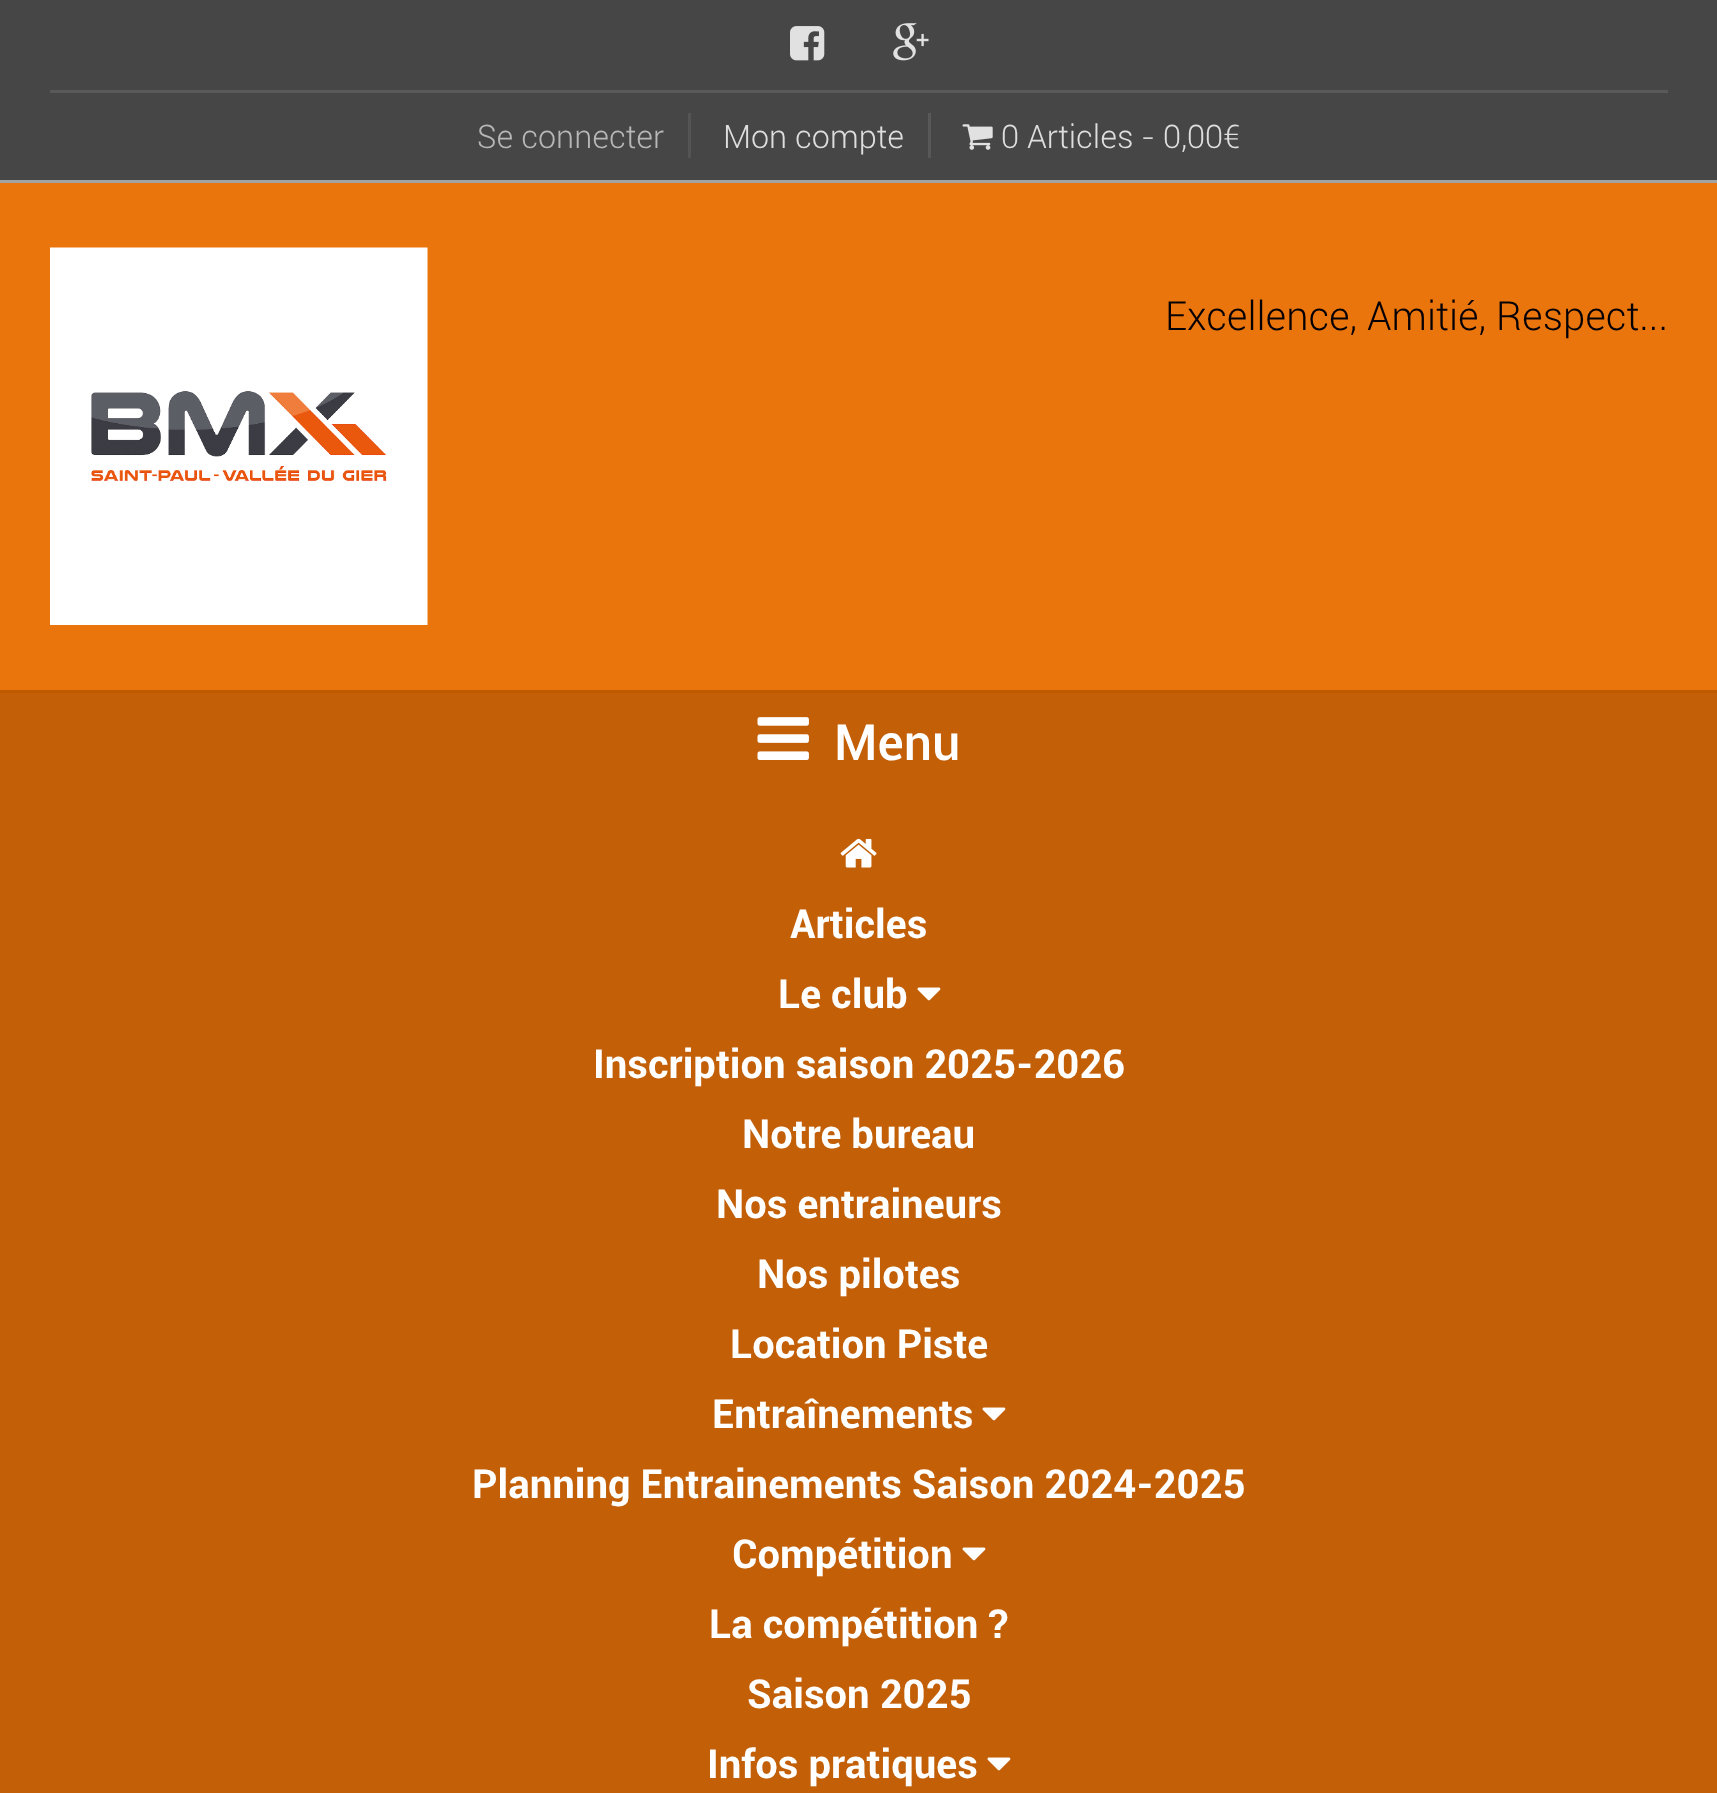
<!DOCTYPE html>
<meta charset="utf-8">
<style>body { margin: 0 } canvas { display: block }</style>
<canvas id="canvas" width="1717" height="1793"></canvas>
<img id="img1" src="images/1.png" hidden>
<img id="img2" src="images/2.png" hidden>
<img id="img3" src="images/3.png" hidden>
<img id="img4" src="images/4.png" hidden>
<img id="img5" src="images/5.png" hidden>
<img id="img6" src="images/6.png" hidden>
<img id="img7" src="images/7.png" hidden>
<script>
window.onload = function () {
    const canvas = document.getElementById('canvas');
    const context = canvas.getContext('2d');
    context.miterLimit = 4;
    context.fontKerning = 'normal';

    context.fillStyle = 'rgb(70, 70, 70)';
    context.fillRect(0, 0, 1717, 1793);
    context.fillStyle = 'rgb(163, 163, 163)';
    context.fillRect(0, 180, 1717, 3);
    context.drawImage(document.getElementById('img1'), 790, 26, 35, 35);
    context.drawImage(document.getElementById('img2'), 893, 23, 36, 38);
    context.fillStyle = 'rgb(89, 89, 89)';
    context.fillRect(50, 90, 1618, 3);
    context.fillStyle = 'rgb(84, 84, 84)';
    context.fillRect(688, 113, 3, 45);
    context.fillStyle = 'rgb(88, 88, 88)';
    context.fillRect(928, 113, 3, 45);
    context.drawImage(document.getElementById('img3'), 962, 124, 31, 26);
    context.fillStyle = 'rgb(234, 117, 13)';
    context.fillRect(0, 183, 1717, 507);
    context.fillStyle = 'rgb(191, 90, 1)';
    context.fillRect(0, 690, 1717, 3);
    context.drawImage(document.getElementById('img4'), 50, 247, 378, 378);
    context.fillStyle = 'rgb(195, 95, 7)';
    context.fillRect(0, 693, 1717, 1100);
    context.drawImage(document.getElementById('img5'), 757, 717, 52, 43);
    context.drawImage(document.getElementById('img6'), 840, 838, 37, 30);
    context.drawImage(document.getElementById('img7'), 917, 987, 24, 14);
    context.drawImage(document.getElementById('img7'), 982, 1407, 24, 14);
    context.drawImage(document.getElementById('img7'), 962, 1547, 24, 14);
    context.drawImage(document.getElementById('img7'), 987, 1757, 24, 14);
    context.font = '300 32.5px Roboto';
    context.fillStyle = 'rgb(183, 183, 183)';
    context.fillText('Se connecter', 477, 148);
    context.fillStyle = 'rgb(222, 222, 222)';
    context.fillText('Mon compte', 723, 148);
    context.fillText('0 Articles - 0,00€', 1001, 148);
    context.font = '300 40px Roboto';
    context.fillStyle = 'rgb(5, 0, 5)';
    context.fillText('Excellence, Amitié, Respect...', 1165, 330);
    context.font = '500 50px Roboto';
    context.fillStyle = 'rgb(255, 255, 255)';
    context.fillText('Menu', 834, 760);
    context.font = 'bold 40px Roboto';
    context.fillText('Articles', 790, 938);
    context.fillText('Le club', 778, 1008);
    context.fillText('Inscription saison 2025-2026', 593, 1078);
    context.fillText('Notre bureau', 742, 1148);
    context.fillText('Nos entraineurs', 716, 1218);
    context.fillText('Nos pilotes', 757, 1288);
    context.fillText('Location Piste', 730, 1358);
    context.fillText('Entraînements', 712, 1428);
    context.fillText('Planning Entrainements Saison 2024-2025', 472, 1498);
    context.fillText('Compétition', 732, 1568);
    context.fillText('La compétition ?', 709, 1638);
    context.fillText('Saison 2025', 747, 1708);
    context.fillText('Infos pratiques', 707, 1778);
};
</script>
